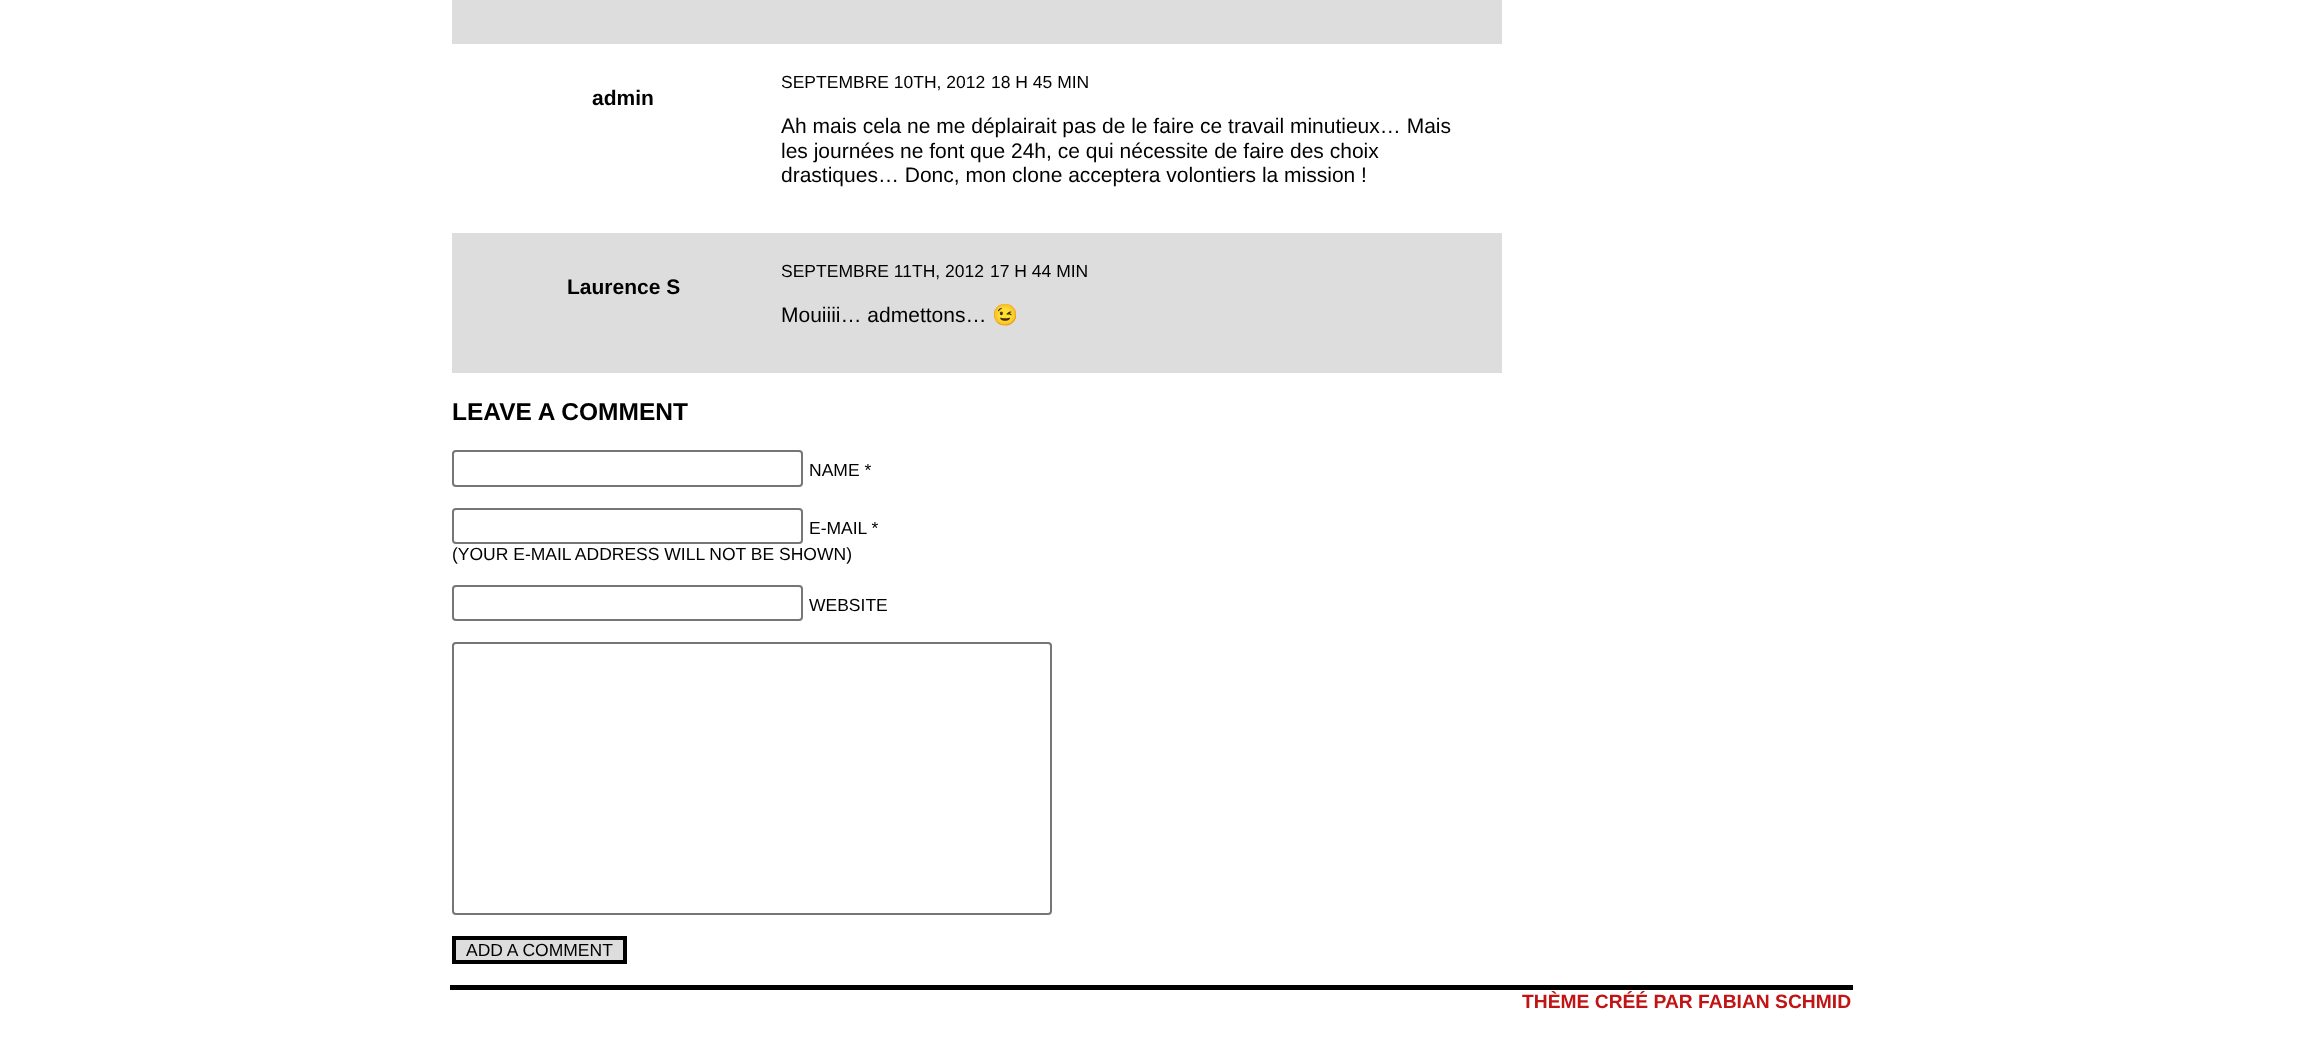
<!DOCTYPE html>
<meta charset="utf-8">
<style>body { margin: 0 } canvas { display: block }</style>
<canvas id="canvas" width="2303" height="1057"></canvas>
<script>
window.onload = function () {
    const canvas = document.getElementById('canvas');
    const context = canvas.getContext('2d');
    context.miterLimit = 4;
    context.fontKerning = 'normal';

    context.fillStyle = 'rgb(255, 255, 255)';
    context.fillRect(0, 0, 2303, 1057);
    context.fillStyle = 'rgb(221, 221, 221)';
    context.fillRect(452, 0, 1050, 44);
    context.fillRect(452, 233, 1050, 140);
    context.beginPath();
    context.roundRect(453, 451, 349, 35, 3);
    context.strokeStyle = 'rgb(118, 118, 118)';
    context.lineWidth = 2;
    context.stroke();
    context.beginPath();
    context.roundRect(453, 509, 349, 34, 3);
    context.stroke();
    context.beginPath();
    context.roundRect(453, 586, 349, 34, 3);
    context.stroke();
    context.beginPath();
    context.roundRect(453, 643, 598, 271, 3);
    context.stroke();
    context.beginPath();
    context.rect(454, 938, 171, 24);
    context.fill();
    context.strokeStyle = 'rgb(0, 0, 0)';
    context.lineWidth = 4;
    context.stroke();
    context.fillStyle = 'rgb(0, 0, 0)';
    context.fillRect(450, 985, 1403, 5);
    context.font = 'bold 21px Liberation Sans';
    context.fillText('admin', 592, 105);
    context.font = '17.5px Liberation Sans';
    context.fillText('SEPTEMBRE 10TH, 2012', 781, 88);
    context.fillText('18 H 45 MIN', 991, 88);
    context.font = '21px Liberation Sans';
    context.fillText('Ah mais cela ne me déplairait pas de le faire ce travail minutieux… Mais', 781, 133);
    context.fillText('les journées ne font que 24h, ce qui nécessite de faire des choix', 781, 158);
    context.fillText('drastiques… Donc, mon clone acceptera volontiers la mission !', 781, 182);
    context.font = 'bold 21px Liberation Sans';
    context.fillText('Laurence S', 567, 294);
    context.font = '17.5px Liberation Sans';
    context.fillText('SEPTEMBRE 11TH, 2012', 781, 277);
    context.fillText('17 H 44 MIN', 990, 277);
    context.font = '21px Liberation Sans';
    context.fillText('Mouiiii… admettons…', 781, 322);
    context.font = '21px Noto Color Emoji';
    context.fillText('😉', 992, 322);
    context.font = 'bold 24.5px Liberation Sans';
    context.fillText('LEAVE A COMMENT', 452, 420);
    context.font = '17.5px Liberation Sans';
    context.fillText('NAME *', 809, 476);
    context.fillText('E-MAIL *', 809, 534);
    context.fillText('(YOUR E-MAIL ADDRESS WILL NOT BE SHOWN)', 452, 560);
    context.fillText('WEBSITE', 809, 611);
    context.fillText('ADD A COMMENT', 466, 956);
    context.font = 'bold 19.25px Liberation Sans';
    context.fillStyle = 'rgb(193, 20, 21)';
    context.fillText('THÈME CRÉÉ PAR FABIAN SCHMID', 1522, 1008);
};
</script>
